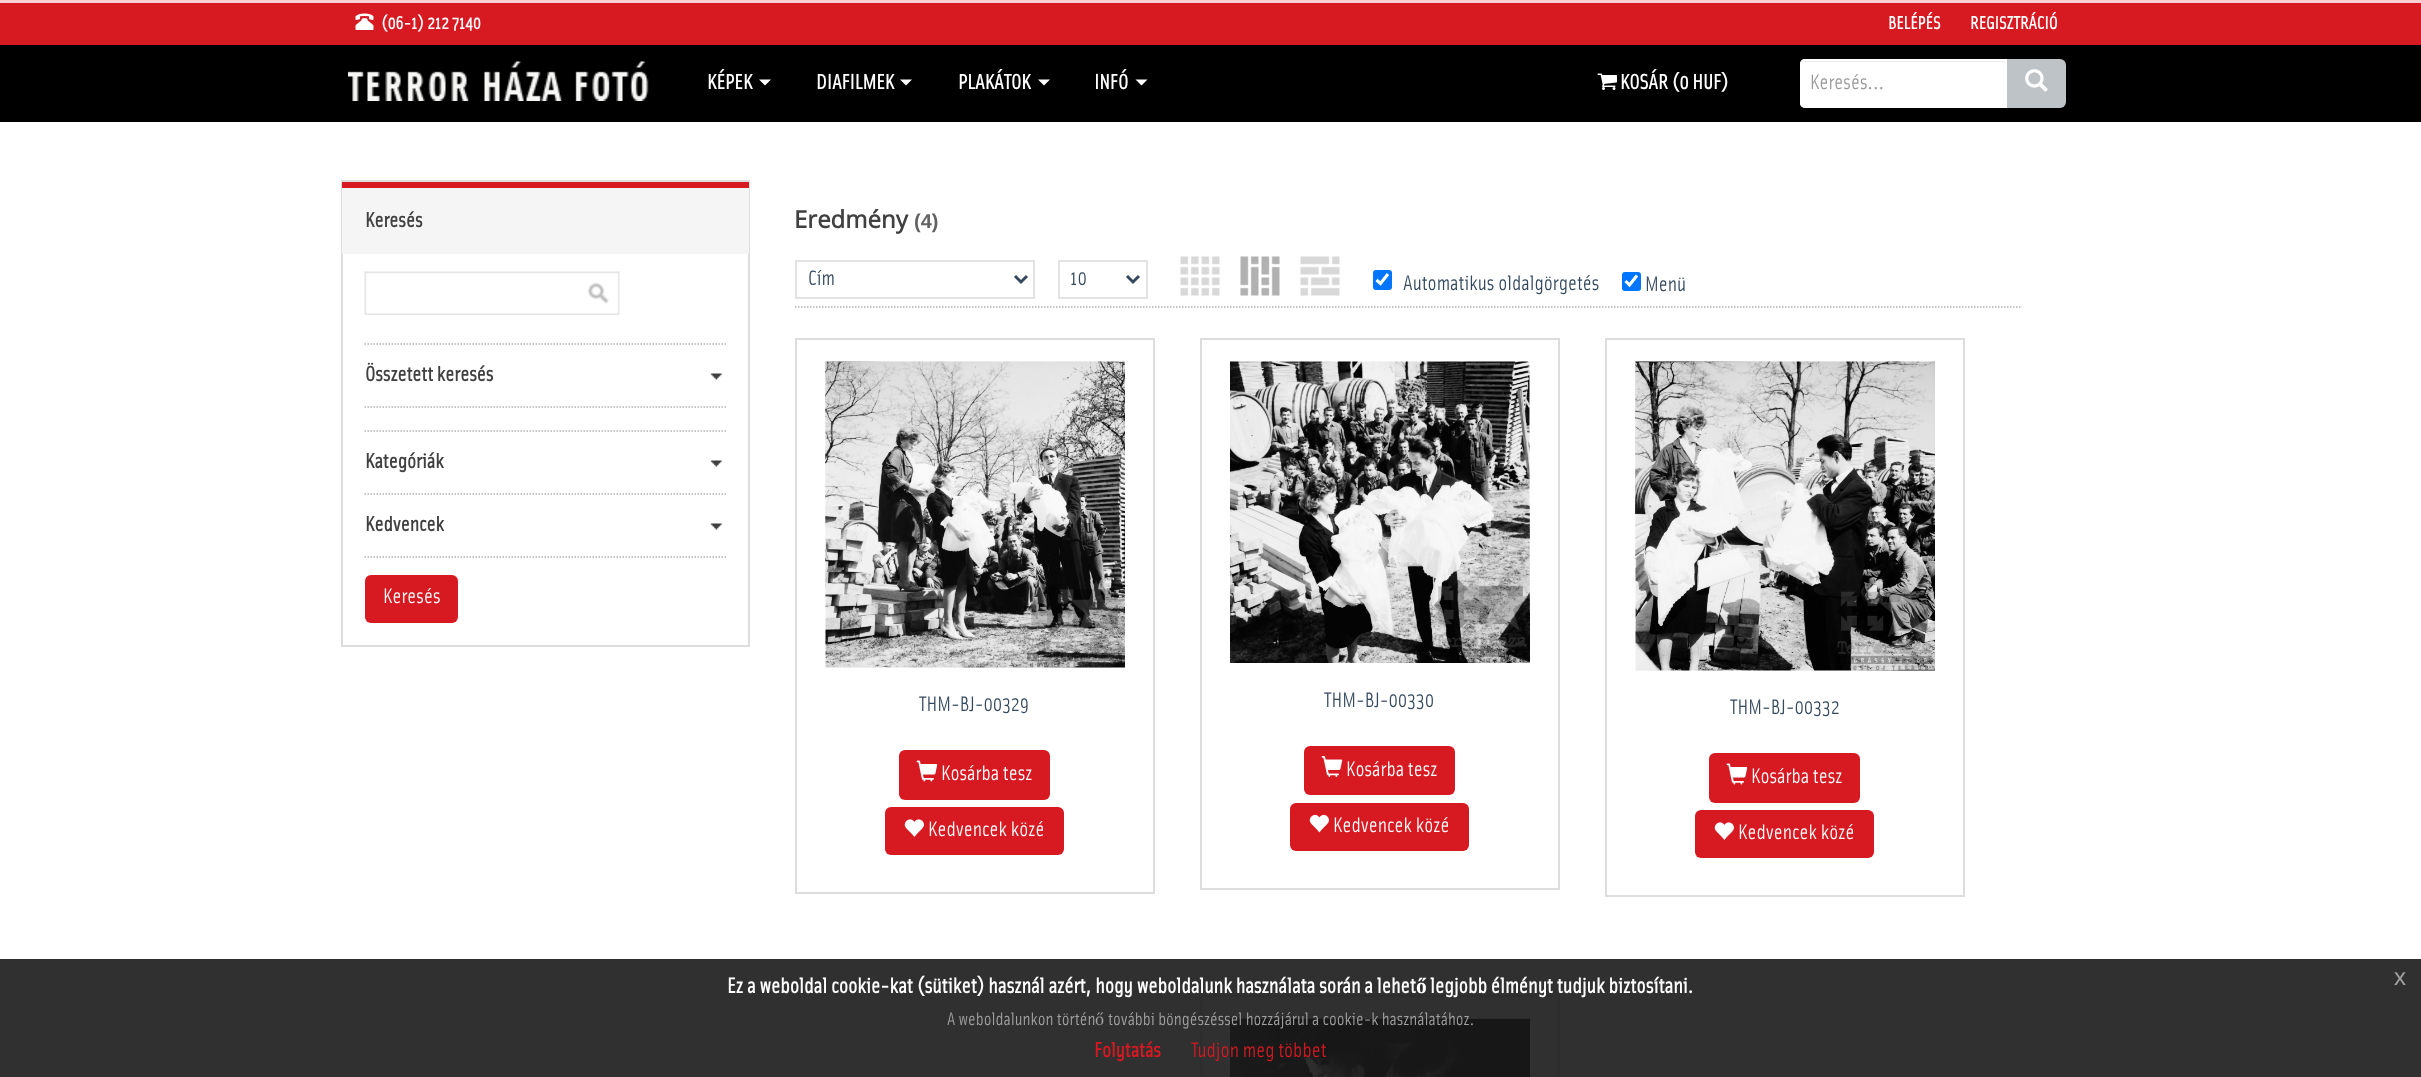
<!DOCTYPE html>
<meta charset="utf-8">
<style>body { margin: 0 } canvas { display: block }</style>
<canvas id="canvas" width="2421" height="1077"></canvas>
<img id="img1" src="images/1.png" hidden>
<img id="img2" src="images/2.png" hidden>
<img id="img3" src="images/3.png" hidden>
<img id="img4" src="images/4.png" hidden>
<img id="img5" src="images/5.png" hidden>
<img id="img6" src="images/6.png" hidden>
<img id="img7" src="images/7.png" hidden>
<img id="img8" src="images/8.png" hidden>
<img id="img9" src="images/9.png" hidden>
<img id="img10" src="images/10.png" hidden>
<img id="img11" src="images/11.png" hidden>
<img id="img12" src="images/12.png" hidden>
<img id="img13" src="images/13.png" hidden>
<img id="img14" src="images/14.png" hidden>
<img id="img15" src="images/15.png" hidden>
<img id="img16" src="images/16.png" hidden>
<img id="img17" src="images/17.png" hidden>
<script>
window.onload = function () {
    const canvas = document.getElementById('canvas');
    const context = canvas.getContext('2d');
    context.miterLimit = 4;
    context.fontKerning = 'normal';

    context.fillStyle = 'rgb(255, 255, 255)';
    context.fillRect(0, 0, 2421, 1077);
    context.fillStyle = 'rgb(48, 48, 48)';
    context.fillRect(0, 959, 2421, 118);
    context.fillStyle = 'rgb(247, 209, 211)';
    context.fillRect(0, 0, 2421, 3);
    context.fillStyle = 'rgb(0, 0, 0)';
    context.fillRect(0, 45, 2421, 77);
    context.fillStyle = 'rgb(215, 25, 33)';
    context.fillRect(0, 3, 2421, 42);
    context.drawImage(document.getElementById('img1'), 355, 13, 19, 17);
    context.drawImage(document.getElementById('img2'), 348, 61, 301, 40);
    context.fillStyle = 'rgb(255, 255, 255)';
    context.beginPath();
    context.moveTo(759, 79.5);
    context.lineTo(771, 79.5);
    context.lineTo(765, 85.5);
    context.closePath();
    context.fill();
    context.beginPath();
    context.moveTo(900, 79.5);
    context.lineTo(912, 79.5);
    context.lineTo(906, 85.5);
    context.closePath();
    context.fill();
    context.beginPath();
    context.moveTo(1038, 79.5);
    context.lineTo(1050, 79.5);
    context.lineTo(1044, 85.5);
    context.closePath();
    context.fill();
    context.beginPath();
    context.moveTo(1135.5, 79.5);
    context.lineTo(1147.5, 79.5);
    context.lineTo(1141.5, 85.5);
    context.closePath();
    context.fill();
    context.drawImage(document.getElementById('img3'), 1597, 73, 20, 17);
    context.beginPath();
    context.roundRect(1800, 59, 207, 49, [5, 0, 0, 5]);
    context.fill();
    context.fillStyle = 'rgb(236, 236, 236)';
    context.beginPath();
    context.moveTo(1804, 62);
    context.lineTo(2006, 62);
    context.lineTo(2006, 60);
    context.lineTo(1804, 60);
    context.bezierCurveTo(1802, 61, 1802, 62, 1802, 64);
    context.bezierCurveTo(1802, 63, 1803, 62, 1804, 62);
    context.closePath();
    context.fill();
    context.beginPath();
    context.roundRect(1801, 60, 205, 47, [4, 0, 0, 4]);
    context.strokeStyle = 'rgb(255, 255, 255)';
    context.lineWidth = 2;
    context.stroke();
    context.fillStyle = 'rgb(189, 195, 199)';
    context.beginPath();
    context.roundRect(2007, 59, 59, 49, [0, 6, 6, 0]);
    context.fill();
    context.drawImage(document.getElementById('img4'), 2025, 69, 23, 23);
    context.strokeStyle = 'rgb(221, 221, 221)';
    context.strokeRect(342, 181, 407, 465);
    context.fillStyle = 'rgb(245, 245, 245)';
    context.fillRect(342, 188, 407, 66);
    context.fillStyle = 'rgb(215, 25, 33)';
    context.fillRect(342, 182, 407, 6);
    context.drawImage(document.getElementById('img5'), 364, 271, 256, 44);
    context.beginPath();
    context.moveTo(364.5, 344);
    context.lineTo(726, 344);
    context.strokeStyle = 'rgb(179, 179, 179)';
    context.lineWidth = 1.5;
    context.setLineDash([1.5, 1.5]);
    context.stroke();
    context.drawImage(document.getElementById('img6'), 710, 373, 12, 7);
    context.beginPath();
    context.moveTo(364.5, 407);
    context.lineTo(726, 407);
    context.stroke();
    context.beginPath();
    context.moveTo(364.5, 431);
    context.lineTo(726, 431);
    context.stroke();
    context.drawImage(document.getElementById('img6'), 710, 460, 12, 7);
    context.beginPath();
    context.moveTo(364.5, 494);
    context.lineTo(726, 494);
    context.stroke();
    context.drawImage(document.getElementById('img6'), 710, 523, 12, 7);
    context.beginPath();
    context.moveTo(364.5, 557);
    context.lineTo(726, 557);
    context.stroke();
    context.beginPath();
    context.roundRect(365, 575, 93, 48, 6);
    context.fill();
    context.beginPath();
    context.moveTo(795, 307);
    context.lineTo(2020.5, 307);
    context.stroke();
    context.strokeStyle = 'rgb(227, 227, 227)';
    context.lineWidth = 2;
    context.setLineDash([]);
    context.strokeRect(796, 261, 238, 37);
    context.beginPath();
    context.moveTo(1015, 276);
    context.lineTo(1021, 282);
    context.lineTo(1027, 276);
    context.strokeStyle = 'rgb(52, 73, 94)';
    context.lineWidth = 3;
    context.stroke();
    context.strokeStyle = 'rgb(227, 227, 227)';
    context.lineWidth = 2;
    context.strokeRect(1059, 261, 88, 37);
    context.beginPath();
    context.moveTo(1127, 276);
    context.lineTo(1133, 282);
    context.lineTo(1139, 276);
    context.strokeStyle = 'rgb(52, 73, 94)';
    context.lineWidth = 3;
    context.stroke();
    context.drawImage(document.getElementById('img7'), 1180, 256, 40, 40);
    context.drawImage(document.getElementById('img8'), 1240, 256, 40, 40);
    context.drawImage(document.getElementById('img9'), 1300, 256, 40, 40);
    context.fillStyle = 'rgb(0, 117, 255)';
    context.beginPath();
    context.roundRect(1373, 270, 19, 20, 3);
    context.fill();
    context.beginPath();
    context.moveTo(1376.5, 280);
    context.lineTo(1380.5, 283.5);
    context.lineTo(1388, 274);
    context.strokeStyle = 'rgb(255, 255, 255)';
    context.lineWidth = 3.1;
    context.stroke();
    context.beginPath();
    context.roundRect(1622, 272, 19, 19, 3);
    context.fill();
    context.beginPath();
    context.moveTo(1625.5, 281);
    context.lineTo(1629.5, 285);
    context.lineTo(1637, 275.5);
    context.stroke();
    context.strokeStyle = 'rgb(221, 221, 221)';
    context.lineWidth = 2;
    context.strokeRect(796, 339, 358, 554);
    context.drawImage(document.getElementById('img10'), 825, 361, 300, 307);
    context.fillStyle = 'rgb(215, 25, 33)';
    context.beginPath();
    context.roundRect(899, 750, 151, 50, 6);
    context.fill();
    context.drawImage(document.getElementById('img11'), 916, 760, 22, 22);
    context.beginPath();
    context.roundRect(885, 807, 179, 48, 6);
    context.fill();
    context.drawImage(document.getElementById('img12'), 904, 819, 20, 18);
    context.strokeRect(1201, 339, 358, 550);
    context.drawImage(document.getElementById('img13'), 1230, 361, 300, 302);
    context.beginPath();
    context.roundRect(1304, 746, 151, 49, 6);
    context.fill();
    context.drawImage(document.getElementById('img14'), 1321, 756, 22, 21);
    context.beginPath();
    context.roundRect(1290, 803, 179, 48, 6);
    context.fill();
    context.drawImage(document.getElementById('img15'), 1309, 814, 20, 19);
    context.strokeRect(1606, 339, 358, 557);
    context.drawImage(document.getElementById('img16'), 1635, 361, 300, 310);
    context.beginPath();
    context.roundRect(1709, 753, 151, 50, 6);
    context.fill();
    context.drawImage(document.getElementById('img11'), 1726, 763, 22, 22);
    context.beginPath();
    context.roundRect(1695, 810, 179, 48, 6);
    context.fill();
    context.drawImage(document.getElementById('img12'), 1714, 822, 20, 18);
    context.strokeStyle = 'rgb(45, 45, 45)';
    context.strokeRect(1201, 996, 358, 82);
    context.drawImage(document.getElementById('img17'), 1230, 1018, 300, 59);
    context.font = 'bold 18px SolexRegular';
    context.fillStyle = 'rgb(255, 255, 255)';
    context.fillText('(06-1) 212 7140', 381, 29);
    context.fillText('BELÉPÉS', 1888, 29);
    context.fillText('REGISZTRÁCIÓ', 1970, 29);
    context.font = 'bold 21px SolexRegular';
    context.fillText('KÉPEK', 707, 89);
    context.fillText('DIAFILMEK', 816, 89);
    context.fillText('PLAKÁTOK', 958, 89);
    context.fillText('INFÓ', 1094, 89);
    context.fillText('KOSÁR (0 HUF)', 1620, 89);
    context.font = '21px SolexRegular';
    context.fillStyle = 'rgb(153, 153, 153)';
    context.fillText('Keresés...', 1810, 89);
    context.font = 'bold 21px SolexRegular';
    context.fillStyle = 'rgb(64, 64, 64)';
    context.fillText('Keresés', 365, 227);
    context.fillText('Összetett keresés', 365, 381);
    context.fillText('Kategóriák', 365, 468);
    context.fillText('Kedvencek', 365, 531);
    context.font = '21px SolexRegular';
    context.fillStyle = 'rgb(255, 255, 255)';
    context.fillText('Keresés', 383, 603);
    context.font = 'bold 24px Open Sans';
    context.fillStyle = 'rgb(64, 64, 64)';
    context.fillText('Eredmény', 794, 228);
    context.font = 'bold 20px Liberation Sans';
    context.fillStyle = 'rgb(99, 99, 99)';
    context.fillText('(4)', 914, 228);
    context.font = '21px SolexRegular';
    context.fillStyle = 'rgb(52, 73, 94)';
    context.fillText('Cím', 808, 285);
    context.fillText('10', 1070, 285);
    context.fillText('Automatikus oldalgörgetés', 1403, 290);
    context.fillText('Menü', 1645, 291);
    context.fillText('THM-BJ-00329', 919, 711);
    context.fillStyle = 'rgb(255, 255, 255)';
    context.fillText('Kosárba tesz', 941, 780);
    context.fillText('Kedvencek közé', 928, 836);
    context.fillStyle = 'rgb(52, 73, 94)';
    context.fillText('THM-BJ-00330', 1324, 707);
    context.fillStyle = 'rgb(255, 255, 255)';
    context.fillText('Kosárba tesz', 1346, 776);
    context.fillText('Kedvencek közé', 1333, 832);
    context.fillStyle = 'rgb(52, 73, 94)';
    context.fillText('THM-BJ-00332', 1730, 714);
    context.fillStyle = 'rgb(255, 255, 255)';
    context.fillText('Kosárba tesz', 1751, 783);
    context.fillText('Kedvencek közé', 1738, 839);
    context.font = 'bold 21.6px SolexRegular';
    context.fillText('Ez a weboldal cookie-kat (sütiket) használ azért, hogy weboldalunk használata során a lehet', 727, 993);
    context.font = 'bold 21.6px Liberation Serif';
    context.fillText('ő', 1416, 993);
    context.font = 'bold 21.6px SolexRegular';
    context.fillText('legjobb élményt tudjuk biztosítani.', 1430, 993);
    context.font = '24px Liberation Sans';
    context.fillStyle = 'rgb(162, 162, 162)';
    context.fillText('x', 2394, 985);
    context.font = '18px SolexRegular';
    context.fillText('A weboldalunkon történ', 947, 1025);
    context.font = '18px Liberation Serif';
    context.fillText('ő', 1095, 1025);
    context.font = '18px SolexRegular';
    context.fillText('további böngészéssel hozzájárul a cookie-k használatához.', 1108, 1025);
    context.font = 'bold 21px SolexRegular';
    context.fillStyle = 'rgb(215, 25, 33)';
    context.fillText('Folytatás', 1094, 1057);
    context.font = '21px SolexRegular';
    context.fillText('Tudjon meg többet', 1191, 1057);
};
</script>
